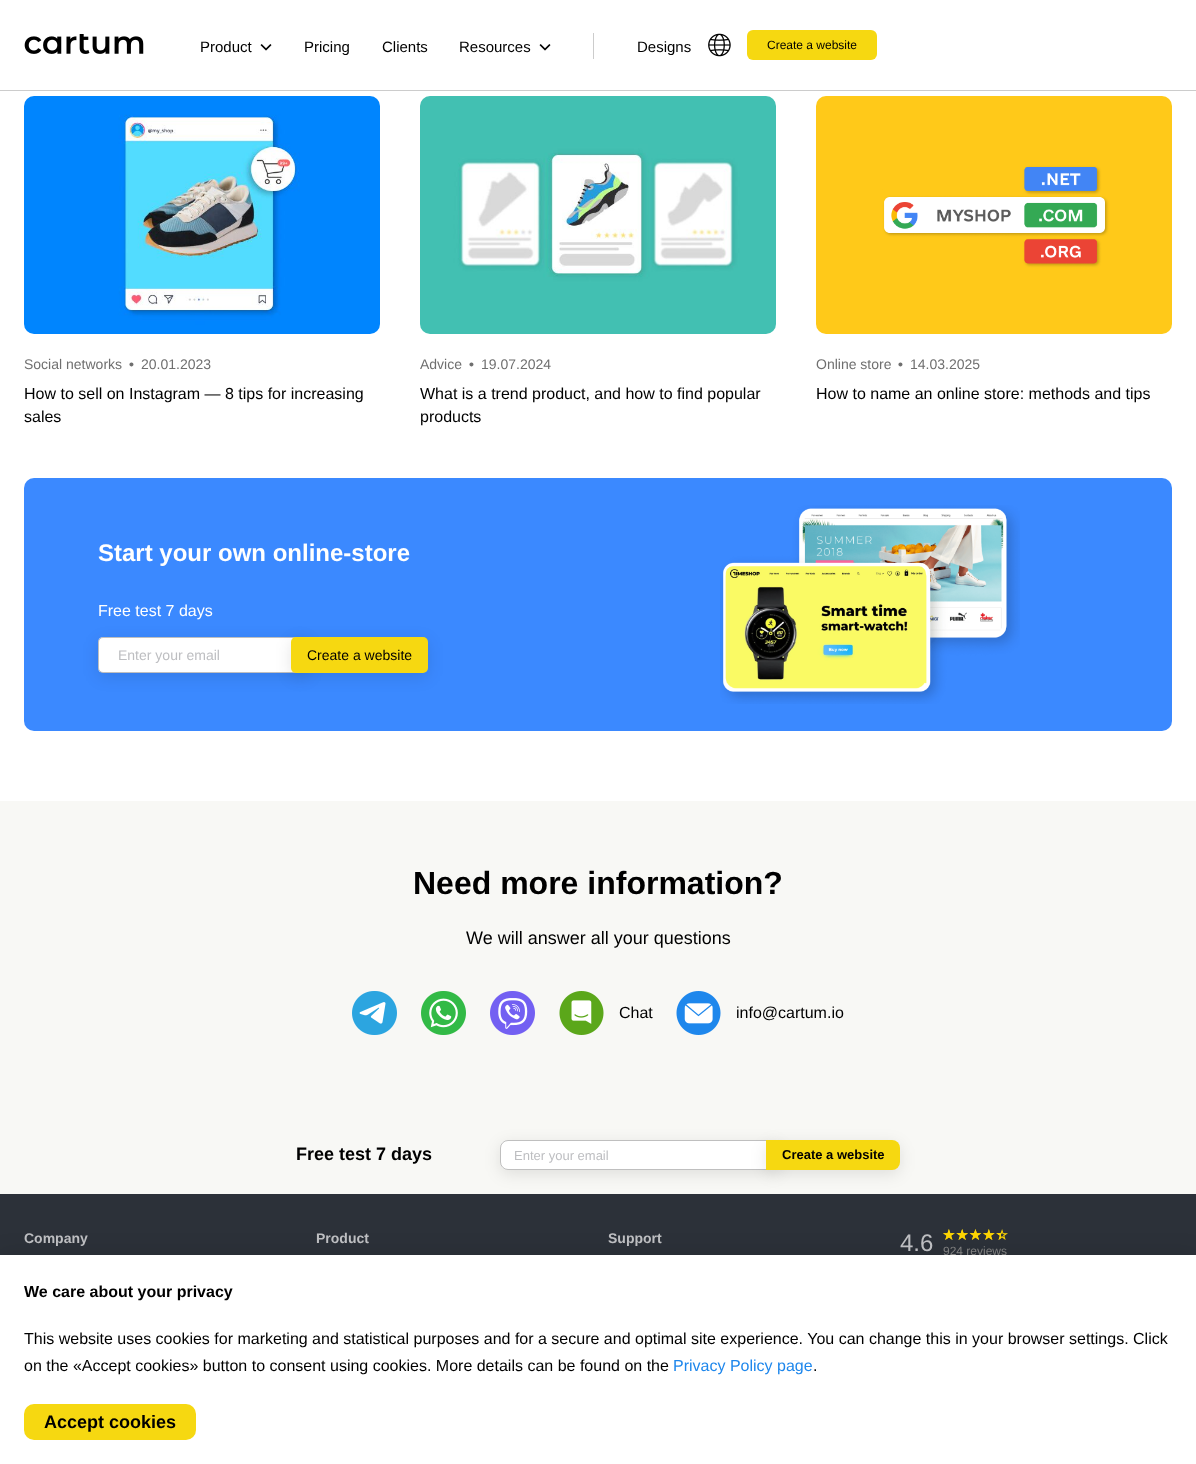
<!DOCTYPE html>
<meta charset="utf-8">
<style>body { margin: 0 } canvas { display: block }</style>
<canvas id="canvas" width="1196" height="1464"></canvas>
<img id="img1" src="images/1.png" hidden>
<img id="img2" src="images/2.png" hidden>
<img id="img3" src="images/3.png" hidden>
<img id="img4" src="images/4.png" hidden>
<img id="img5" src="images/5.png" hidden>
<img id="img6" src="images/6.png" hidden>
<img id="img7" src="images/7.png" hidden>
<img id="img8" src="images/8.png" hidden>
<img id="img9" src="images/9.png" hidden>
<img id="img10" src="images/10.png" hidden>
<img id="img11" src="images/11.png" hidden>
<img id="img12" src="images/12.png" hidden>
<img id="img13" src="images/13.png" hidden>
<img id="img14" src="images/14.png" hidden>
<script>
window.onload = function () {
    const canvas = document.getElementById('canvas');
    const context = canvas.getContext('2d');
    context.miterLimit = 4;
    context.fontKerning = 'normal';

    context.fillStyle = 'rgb(255, 255, 255)';
    context.fillRect(0, 0, 1196, 1464);
    context.fillStyle = 'rgb(204, 204, 204)';
    context.fillRect(0, 90, 1196, 1);
    context.drawImage(document.getElementById('img1'), 24, 34, 120, 20);
    context.drawImage(document.getElementById('img2'), 260, 44, 12, 7);
    context.drawImage(document.getElementById('img2'), 539, 44, 12, 7);
    context.fillRect(593, 33, 1, 26);
    context.drawImage(document.getElementById('img3'), 708, 33, 23, 24);
    context.fillStyle = 'rgb(246, 216, 17)';
    context.beginPath();
    context.roundRect(747, 30, 130, 30, 6);
    context.fill();
    context.drawImage(document.getElementById('img4'), 24, 96, 356, 238);
    context.drawImage(document.getElementById('img5'), 420, 96, 356, 238);
    context.drawImage(document.getElementById('img6'), 816, 96, 356, 238);
    context.fillStyle = 'rgb(59, 137, 255)';
    context.beginPath();
    context.roundRect(24, 478, 1148, 253, 10);
    context.fill();
    context.fillStyle = 'rgba(0, 0, 0, 0.1)';
    context.filter = 'blur(8px)';
    context.beginPath();
    context.roundRect(98, 641, 211, 36, 5);
    context.fill();
    context.filter = 'none';
    context.fillStyle = 'rgb(255, 255, 255)';
    context.beginPath();
    context.roundRect(98, 637, 211, 36, [5, 0, 0, 5]);
    context.fill();
    context.beginPath();
    context.roundRect(98.5, 637.5, 210, 35, [4.5, 0, 0, 4.5]);
    context.strokeStyle = 'rgba(0, 0, 0, 0.25)';
    context.stroke();
    context.fillStyle = 'rgba(0, 0, 0, 0.1)';
    context.filter = 'blur(8px)';
    context.beginPath();
    context.roundRect(291, 641, 137, 36, 5);
    context.fill();
    context.filter = 'none';
    context.fillStyle = 'rgb(246, 216, 17)';
    context.beginPath();
    context.roundRect(291, 637, 137, 36, 5);
    context.fill();
    context.drawImage(document.getElementById('img7'), 720, 505, 300, 199);
    context.fillStyle = 'rgb(248, 248, 245)';
    context.fillRect(0, 801, 1196, 393);
    context.drawImage(document.getElementById('img8'), 352, 991, 45, 44);
    context.drawImage(document.getElementById('img9'), 421, 991, 45, 44);
    context.drawImage(document.getElementById('img10'), 490, 991, 45, 44);
    context.drawImage(document.getElementById('img11'), 559, 991, 45, 44);
    context.drawImage(document.getElementById('img12'), 676, 991, 45, 44);
    context.fillStyle = 'rgb(44, 49, 57)';
    context.fillRect(0, 1194, 1196, 61);
    context.fillStyle = 'rgba(0, 0, 0, 0.1)';
    context.filter = 'blur(8px)';
    context.beginPath();
    context.roundRect(500, 1144, 280, 30, 8);
    context.fill();
    context.filter = 'none';
    context.fillStyle = 'rgb(255, 255, 255)';
    context.beginPath();
    context.roundRect(500, 1140, 280, 30, [8, 0, 0, 8]);
    context.fill();
    context.beginPath();
    context.roundRect(500.5, 1140.5, 279, 29, [7.5, 0, 0, 7.5]);
    context.stroke();
    context.fillStyle = 'rgba(0, 0, 0, 0.1)';
    context.filter = 'blur(8px)';
    context.beginPath();
    context.roundRect(766, 1144, 134, 30, 8);
    context.fill();
    context.filter = 'none';
    context.fillStyle = 'rgb(246, 216, 17)';
    context.beginPath();
    context.roundRect(766, 1140, 134, 30, [0, 8, 8, 0]);
    context.fill();
    context.drawImage(document.getElementById('img13'), 943, 1229, 65, 11);
    context.drawImage(document.getElementById('img14'), 943, 1229, 58, 11);
    context.fillStyle = 'rgba(0, 0, 0, 0.1)';
    context.filter = 'blur(10px)';
    context.beginPath();
    context.rect(0, 1252, 1196, 209);
    context.fill();
    context.filter = 'none';
    context.font = '15px Liberation Sans';
    context.fillStyle = 'rgb(0, 0, 0)';
    context.fillText('Product', 200, 52);
    context.fillText('Pricing', 304, 52);
    context.fillText('Clients', 382, 52);
    context.fillText('Resources', 459, 52);
    context.fillText('Designs', 637, 52);
    context.font = '12px Liberation Sans';
    context.fillText('Create a website', 767, 49);
    context.font = '14px Liberation Sans';
    context.fillStyle = 'rgb(111, 111, 111)';
    context.fillText('Social networks', 24, 369);
    context.font = 'bold 14px Liberation Sans';
    context.fillText('•', 129, 369);
    context.font = '14px Liberation Sans';
    context.fillText('20.01.2023', 141, 369);
    context.font = '16px Liberation Sans';
    context.fillStyle = 'rgb(0, 0, 0)';
    context.fillText('How to sell on Instagram — 8 tips for increasing', 24, 399);
    context.fillText('sales', 24, 422);
    context.font = '14px Liberation Sans';
    context.fillStyle = 'rgb(111, 111, 111)';
    context.fillText('Advice', 420, 369);
    context.font = 'bold 14px Liberation Sans';
    context.fillText('•', 469, 369);
    context.font = '14px Liberation Sans';
    context.fillText('19.07.2024', 481, 369);
    context.font = '16px Liberation Sans';
    context.fillStyle = 'rgb(0, 0, 0)';
    context.fillText('What is a trend product, and how to find popular', 420, 399);
    context.fillText('products', 420, 422);
    context.font = '14px Liberation Sans';
    context.fillStyle = 'rgb(111, 111, 111)';
    context.fillText('Online store', 816, 369);
    context.font = 'bold 14px Liberation Sans';
    context.fillText('•', 898, 369);
    context.font = '14px Liberation Sans';
    context.fillText('14.03.2025', 910, 369);
    context.font = '16px Liberation Sans';
    context.fillStyle = 'rgb(0, 0, 0)';
    context.fillText('How to name an online store: methods and tips', 816, 399);
    context.font = 'bold 24px Liberation Sans';
    context.fillStyle = 'rgb(255, 255, 255)';
    context.fillText('Start your own online-store', 98, 561);
    context.font = '16px Liberation Sans';
    context.fillText('Free test 7 days', 98, 616);
    context.font = '14px Liberation Sans';
    context.fillStyle = 'rgb(189, 190, 193)';
    context.fillText('Enter your email', 118, 660);
    context.fillStyle = 'rgb(0, 0, 0)';
    context.fillText('Create a website', 307, 660);
    context.font = 'bold 32px Liberation Sans';
    context.fillText('Need more information?', 413, 894);
    context.font = '18px Liberation Sans';
    context.fillText('We will answer all your questions', 466, 944);
    context.font = '16px Liberation Sans';
    context.fillText('Chat', 619, 1018);
    context.fillText('info@cartum.io', 736, 1018);
    context.font = 'bold 18px Liberation Sans';
    context.fillText('Free test 7 days', 296, 1160);
    context.font = '13px Liberation Sans';
    context.fillStyle = 'rgb(189, 190, 193)';
    context.fillText('Enter your email', 514, 1160);
    context.font = 'bold 13px Liberation Sans';
    context.fillStyle = 'rgb(0, 0, 0)';
    context.fillText('Create a website', 782, 1159);
    context.font = 'bold 14px Liberation Sans';
    context.fillStyle = 'rgb(189, 190, 193)';
    context.fillText('Company', 24, 1243);
    context.fillText('Product', 316, 1243);
    context.fillText('Support', 608, 1243);
    context.font = '24px Liberation Sans';
    context.fillText('4.6', 900, 1251);
    context.font = '12px Liberation Sans';
    context.fillStyle = 'rgb(128, 128, 128)';
    context.fillText('924 reviews', 943, 1255);
    context.fillStyle = 'rgb(255, 255, 255)';
    context.fillRect(0, 1255, 1196, 209);
    context.font = 'bold 16px Liberation Sans';
    context.fillStyle = 'rgb(0, 0, 0)';
    context.fillText('We care about your privacy', 24, 1297);
    context.font = '16px Liberation Sans';
    context.fillText('This website uses cookies for marketing and statistical purposes and for a secure and optimal site experience. You can change this in your browser settings. Click', 24, 1344);
    context.fillText('on the «Accept cookies» button to consent using cookies. More details can be found on the', 24, 1371);
    context.fillStyle = 'rgb(30, 135, 236)';
    context.fillText('Privacy Policy page', 673, 1371);
    context.fillStyle = 'rgb(0, 0, 0)';
    context.fillText('.', 813, 1371);
    context.fillStyle = 'rgb(246, 216, 17)';
    context.beginPath();
    context.roundRect(24, 1404, 172, 36, 10);
    context.fill();
    context.font = 'bold 18px Liberation Sans';
    context.fillStyle = 'rgb(0, 0, 0)';
    context.fillText('Accept cookies', 44, 1428);
};
</script>
